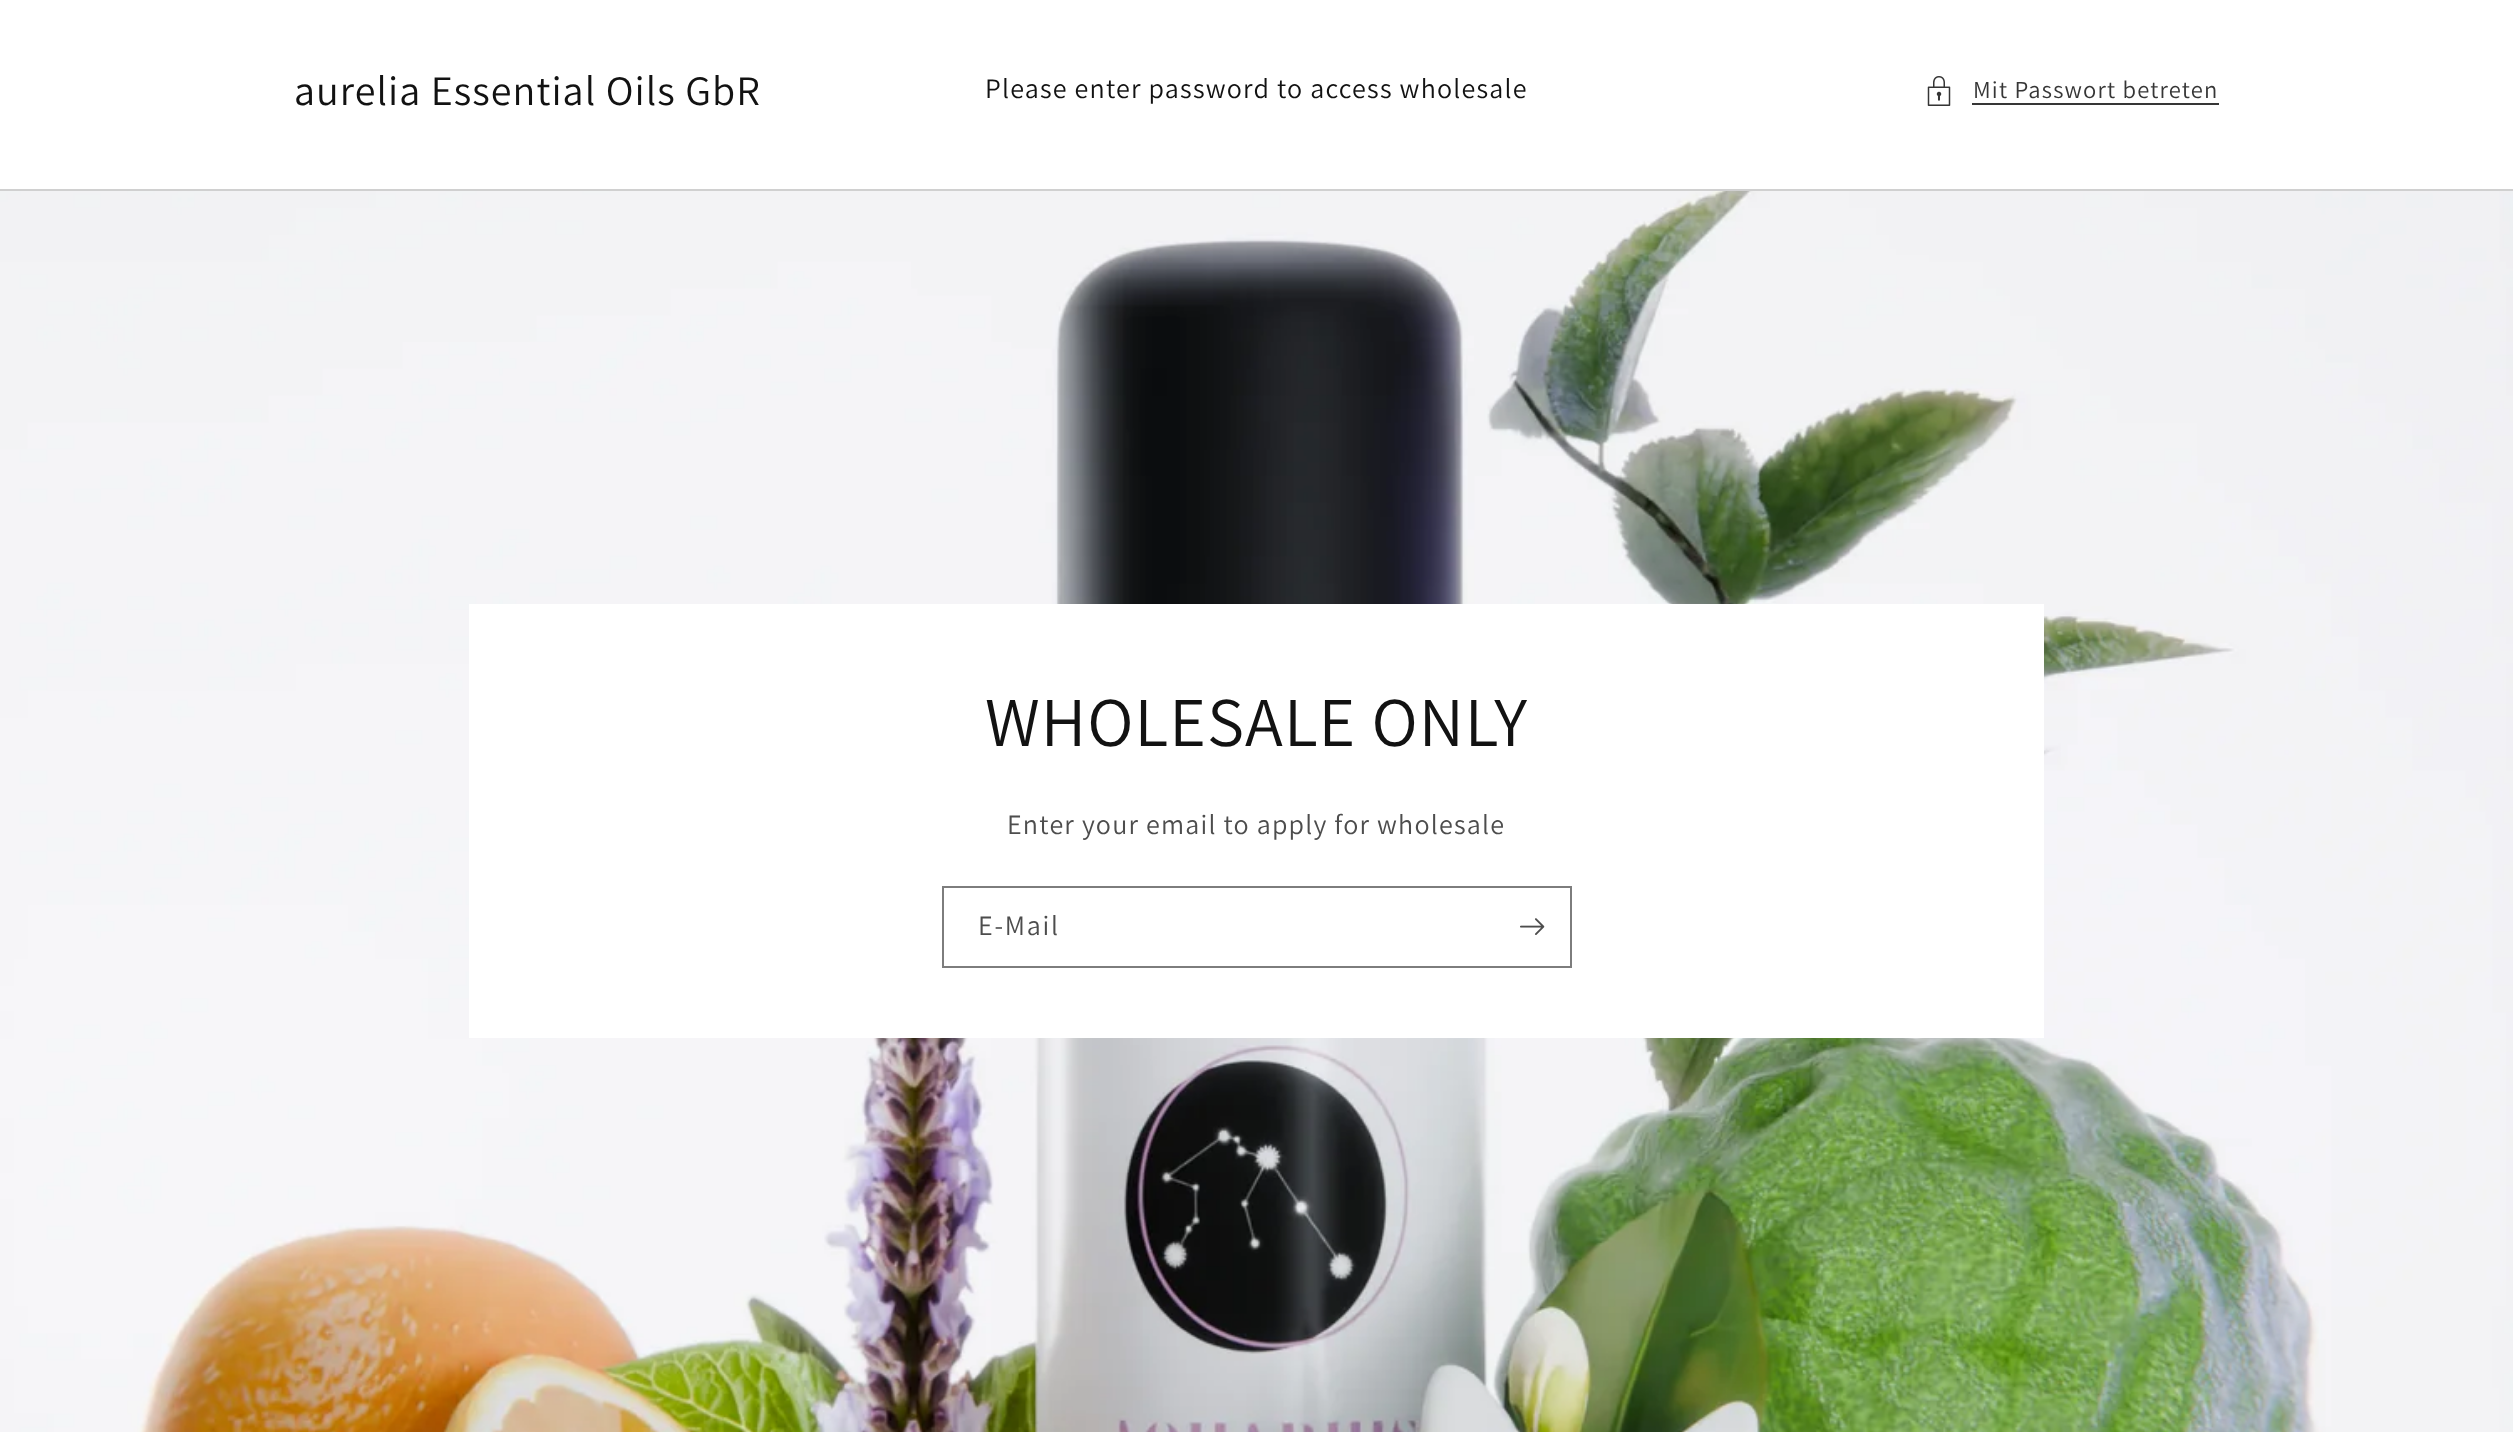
<!DOCTYPE html>
<meta charset="utf-8">
<style>body { margin: 0 } canvas { display: block }</style>
<canvas id="canvas" width="2513" height="1432"></canvas>
<img id="img1" src="images/1.png" hidden>
<img id="img2" src="images/2.png" hidden>
<img id="img3" src="images/3.png" hidden>
<script>
window.onload = function () {
    const canvas = document.getElementById('canvas');
    const context = canvas.getContext('2d');
    context.miterLimit = 4;
    context.fontKerning = 'normal';

    context.fillStyle = 'rgb(255, 255, 255)';
    context.fillRect(0, 0, 2513, 1432);
    context.drawImage(document.getElementById('img1'), 1927, 76, 24, 30);
    context.fillStyle = 'rgb(54, 54, 54)';
    context.fillRect(1972, 103, 247, 2);
    context.fillStyle = 'rgb(208, 208, 208)';
    context.fillRect(0, 189, 2513, 2);
    context.drawImage(document.getElementById('img2'), 0, 191, 2513, 1241);
    context.fillStyle = 'rgb(255, 255, 255)';
    context.fillRect(469, 604, 1575, 434);
    context.strokeStyle = 'rgb(125, 125, 125)';
    context.lineWidth = 2;
    context.strokeRect(943, 887, 628, 80);
    context.drawImage(document.getElementById('img3'), 1520, 918, 25, 17);
    context.letterSpacing = '1.05px';
    context.font = '42px Assistant';
    context.fillStyle = 'rgb(18, 18, 18)';
    context.fillText('aurelia Essential Oils GbR', 294, 105);
    context.letterSpacing = '1.2px';
    context.font = '28px Assistant';
    context.fillText('Please enter password to access wholesale', 985, 98);
    context.font = '24.5px Assistant';
    context.fillStyle = 'rgb(54, 54, 54)';
    context.fillText('Mit Passwort betreten', 1973, 98);
    context.letterSpacing = '1.05px';
    context.font = '70px Assistant';
    context.fillStyle = 'rgb(18, 18, 18)';
    context.fillText('WHOLESALE ONLY', 985, 746);
    context.letterSpacing = '1.2px';
    context.font = '28px Assistant';
    context.fillStyle = 'rgb(77, 77, 77)';
    context.fillText('Enter your email to apply for wholesale', 1007, 834);
    context.letterSpacing = '1.75px';
    context.fillText('E-Mail', 978, 935);
};
</script>
